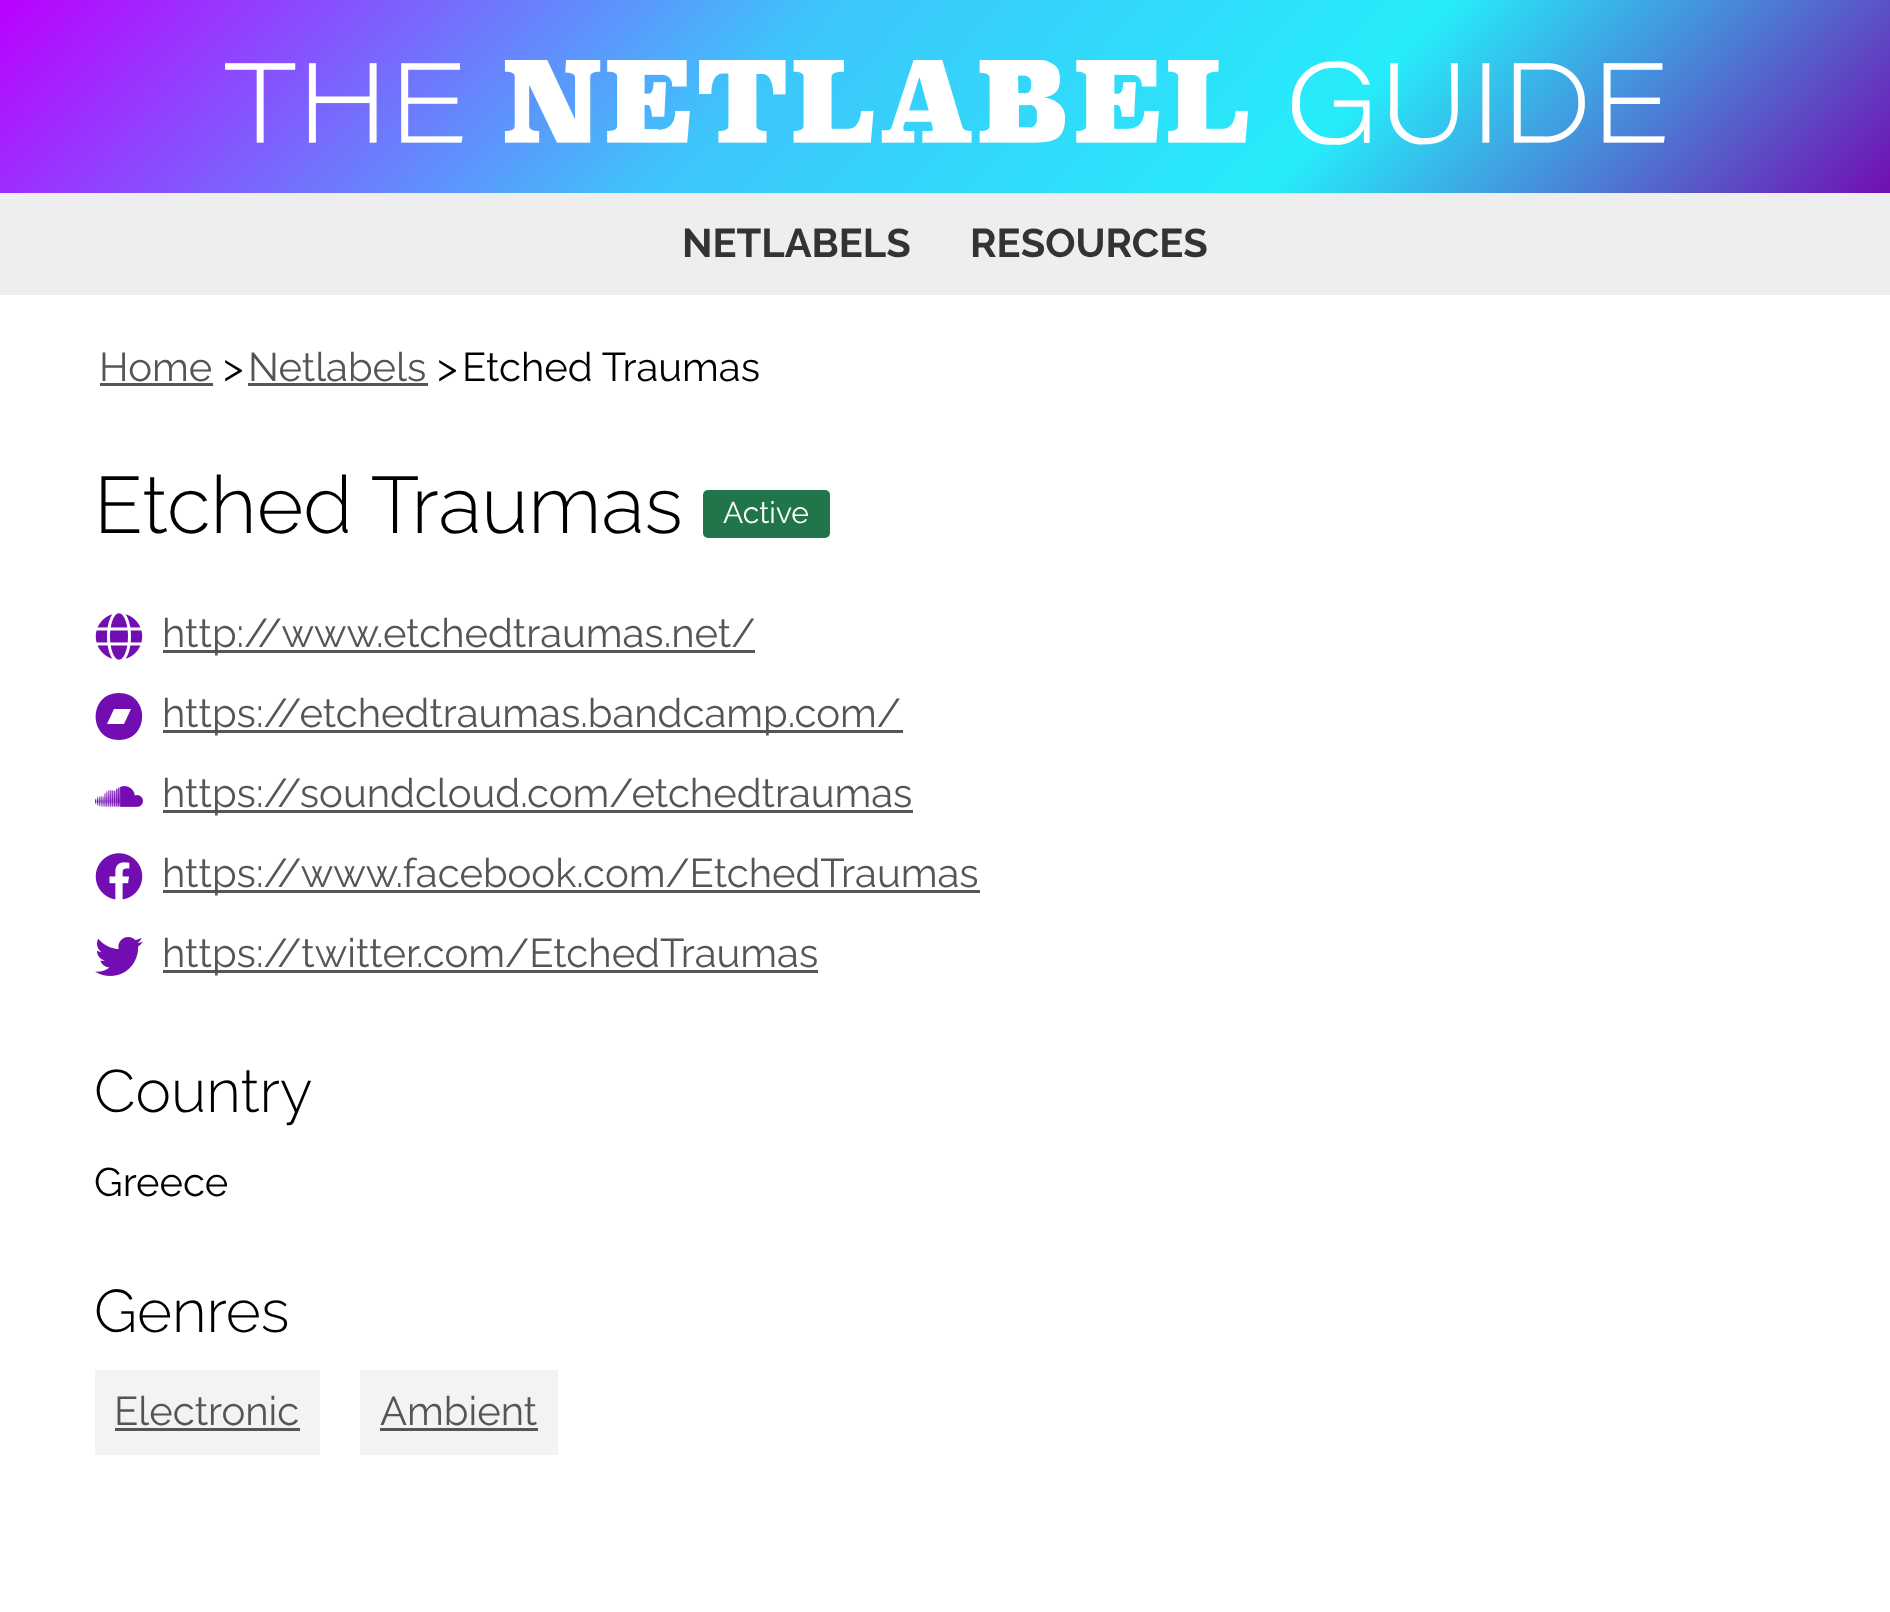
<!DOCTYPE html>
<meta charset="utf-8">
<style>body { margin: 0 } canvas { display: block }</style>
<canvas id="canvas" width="1890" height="1612"></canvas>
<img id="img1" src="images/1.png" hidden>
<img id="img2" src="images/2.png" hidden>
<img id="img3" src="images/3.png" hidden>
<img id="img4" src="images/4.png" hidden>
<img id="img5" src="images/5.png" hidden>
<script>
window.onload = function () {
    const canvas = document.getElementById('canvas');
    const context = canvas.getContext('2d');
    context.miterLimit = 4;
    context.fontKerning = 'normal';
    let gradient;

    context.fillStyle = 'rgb(255, 255, 255)';
    context.fillRect(0, 0, 1890, 1612);
    gradient = context.createLinearGradient(1482, 615, 408, -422);
    gradient.addColorStop(0, 'rgb(114, 14, 177)');
    gradient.addColorStop(0.17, 'rgb(70, 142, 219)');
    gradient.addColorStop(0.3, 'rgb(38, 236, 250)');
    gradient.addColorStop(0.6, 'rgb(62, 197, 251)');
    gradient.addColorStop(1, 'rgb(186, 0, 255)');
    context.fillStyle = gradient;
    context.fillRect(0, 0, 1890, 193);
    context.drawImage(document.getElementById('img1'), 225, 60, 1440, 85);
    context.fillStyle = 'rgb(238, 238, 238)';
    context.fillRect(0, 193, 1890, 102);
    context.fillStyle = 'rgb(85, 85, 85)';
    context.fillRect(100, 383, 113, 3);
    context.fillRect(248, 383, 180, 3);
    context.fillStyle = 'rgb(32, 117, 73)';
    context.beginPath();
    context.roundRect(703, 490, 127, 48, 5);
    context.fill();
    context.drawImage(document.getElementById('img2'), 95, 613, 48, 47);
    context.fillStyle = 'rgb(85, 85, 85)';
    context.fillRect(163, 650, 592, 3);
    context.fillRect(163, 730, 740, 3);
    context.fillStyle = 'rgb(114, 14, 177)';
    context.beginPath();
    context.moveTo(119, 693);
    context.bezierCurveTo(88, 693, 88, 740, 119, 740);
    context.bezierCurveTo(150, 740, 150, 693, 119, 693);
    context.closePath();
    context.moveTo(124, 724);
    context.lineTo(107, 724);
    context.lineTo(114, 709);
    context.lineTo(131, 709);
    context.closePath();
    context.fill();
    context.drawImage(document.getElementById('img3'), 95, 786, 48, 21);
    context.fillStyle = 'rgb(85, 85, 85)';
    context.fillRect(163, 810, 750, 3);
    context.drawImage(document.getElementById('img4'), 95, 853, 48, 47);
    context.fillRect(163, 890, 817, 3);
    context.drawImage(document.getElementById('img5'), 95, 937, 48, 39);
    context.fillRect(163, 970, 655, 3);
    context.fillStyle = 'rgb(243, 243, 243)';
    context.fillRect(95, 1370, 225, 85);
    context.fillStyle = 'rgb(85, 85, 85)';
    context.fillRect(115, 1428, 185, 3);
    context.fillStyle = 'rgb(243, 243, 243)';
    context.fillRect(360, 1370, 198, 85);
    context.fillStyle = 'rgb(85, 85, 85)';
    context.fillRect(380, 1428, 158, 3);
    context.font = 'bold 40px Raleway';
    context.fillStyle = 'rgb(51, 51, 51)';
    context.fillText('NETLABELS', 682, 257);
    context.fillText('RESOURCES', 970, 257);
    context.font = '40px Raleway';
    context.fillStyle = 'rgb(85, 85, 85)';
    context.fillText('Home', 99, 381);
    context.fillStyle = 'rgb(0, 0, 0)';
    context.fillText('>', 223, 381);
    context.fillStyle = 'rgb(85, 85, 85)';
    context.fillText('Netlabels', 248, 381);
    context.fillStyle = 'rgb(0, 0, 0)';
    context.fillText('>', 437, 381);
    context.fillText('Etched Traumas', 462, 381);
    context.font = '300 80px Raleway';
    context.fillText('Etched Traumas', 94, 533);
    context.font = '30px Raleway';
    context.fillStyle = 'rgb(255, 255, 255)';
    context.fillText('Active', 723, 523);
    context.font = '40px Raleway';
    context.fillStyle = 'rgb(85, 85, 85)';
    context.fillText('http://www.etchedtraumas.net/', 162, 647);
    context.fillText('https://etchedtraumas.bandcamp.com/', 162, 727);
    context.fillText('https://soundcloud.com/etchedtraumas', 162, 807);
    context.fillText('https://www.facebook.com/EtchedTraumas', 162, 887);
    context.fillText('https://twitter.com/EtchedTraumas', 162, 967);
    context.font = '300 60px Raleway';
    context.fillStyle = 'rgb(0, 0, 0)';
    context.fillText('Country', 94, 1112);
    context.font = '40px Raleway';
    context.fillText('Greece', 94, 1196);
    context.font = '300 60px Raleway';
    context.fillText('Genres', 94, 1332);
    context.font = '40px Raleway';
    context.fillStyle = 'rgb(85, 85, 85)';
    context.fillText('Electronic', 114, 1425);
    context.fillText('Ambient', 380, 1425);
};
</script>
